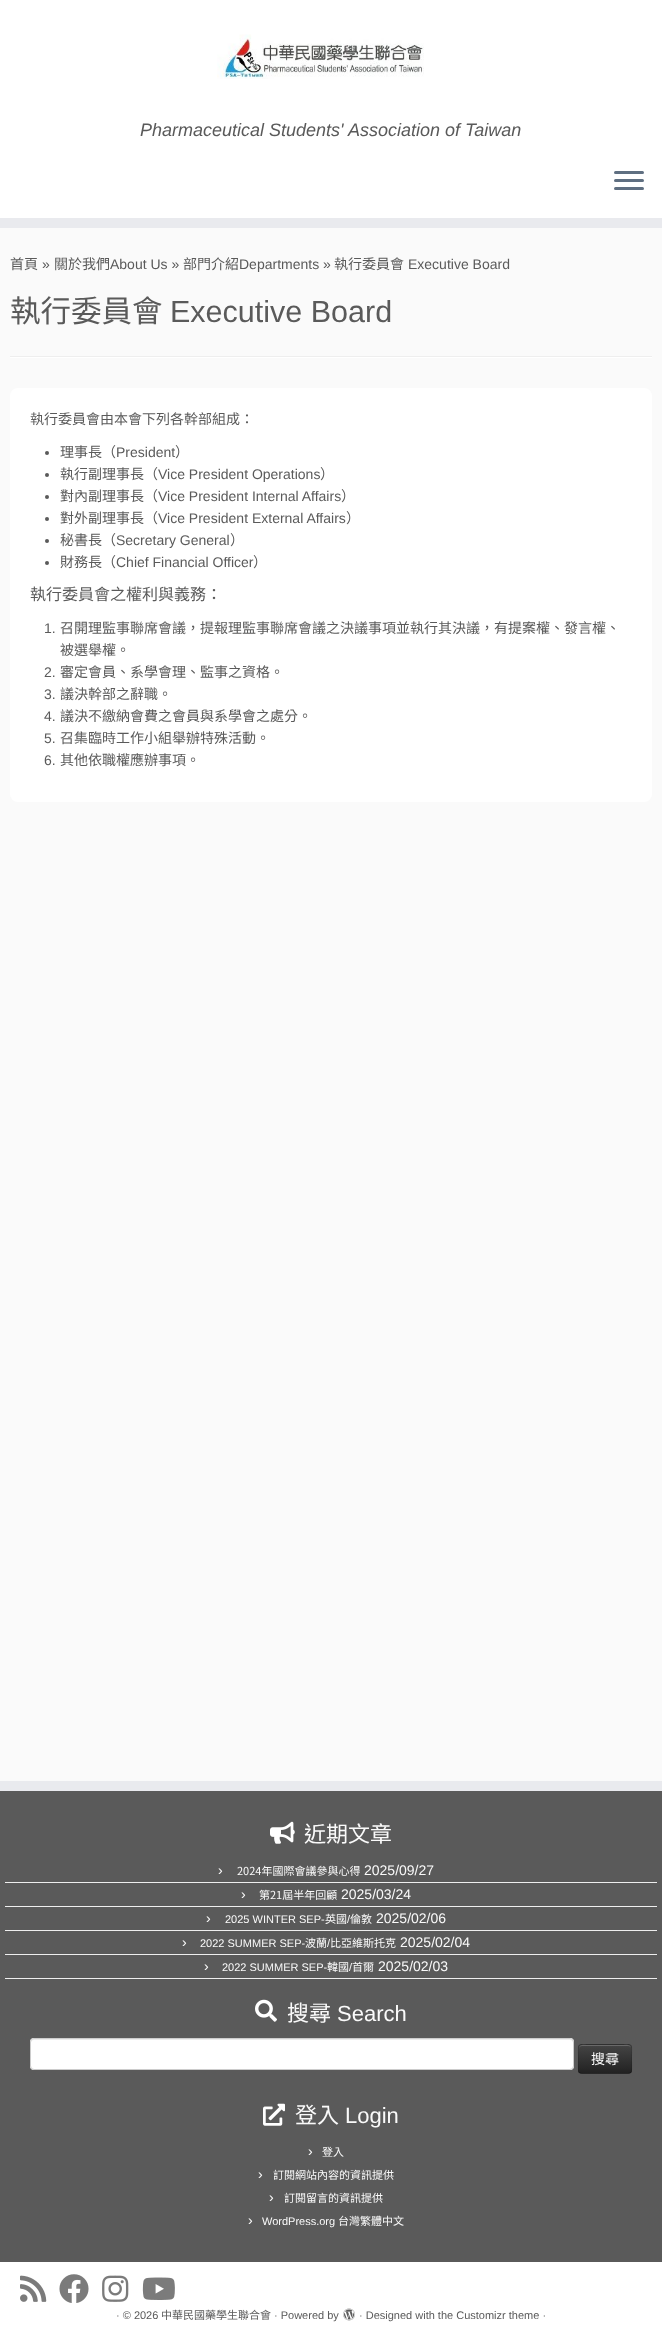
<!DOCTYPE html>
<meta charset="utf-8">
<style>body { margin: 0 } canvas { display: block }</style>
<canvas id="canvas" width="662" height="2340"></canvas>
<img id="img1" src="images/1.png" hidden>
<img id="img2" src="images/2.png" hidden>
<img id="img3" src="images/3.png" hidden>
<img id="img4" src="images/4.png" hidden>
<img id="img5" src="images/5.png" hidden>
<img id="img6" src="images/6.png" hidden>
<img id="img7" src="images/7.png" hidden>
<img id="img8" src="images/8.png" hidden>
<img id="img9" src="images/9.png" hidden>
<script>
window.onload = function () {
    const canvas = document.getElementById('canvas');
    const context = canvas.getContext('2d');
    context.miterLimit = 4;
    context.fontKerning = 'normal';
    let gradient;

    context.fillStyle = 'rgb(250, 250, 250)';
    context.fillRect(0, 0, 662, 2340);
    context.fillStyle = 'rgb(255, 255, 255)';
    context.fillRect(0, 0, 662, 218);
    context.fillStyle = 'rgb(233, 234, 238)';
    context.fillRect(0, 218, 662, 10);
    context.drawImage(document.getElementById('img1'), 217, 34, 207, 45);
    context.fillStyle = 'rgb(95, 111, 129)';
    context.beginPath();
    context.roundRect(614, 171, 30, 3, 1.5);
    context.fill();
    context.beginPath();
    context.roundRect(614, 179, 30, 3, 1.5);
    context.fill();
    context.beginPath();
    context.roundRect(614, 187, 30, 3, 1.5);
    context.fill();
    context.fillStyle = 'rgb(238, 238, 238)';
    context.fillRect(10, 356, 642, 1);
    context.fillStyle = 'rgb(255, 255, 255)';
    context.fillRect(10, 357, 642, 1);
    context.beginPath();
    context.roundRect(10, 388, 642, 414, 8);
    context.fill();
    context.fillStyle = 'rgb(90, 90, 90)';
    context.beginPath();
    context.arc(47, 453, 2, 0, 2 * Math.PI);
    context.fill();
    context.beginPath();
    context.arc(47, 475, 2, 0, 2 * Math.PI);
    context.fill();
    context.beginPath();
    context.arc(47, 497, 2, 0, 2 * Math.PI);
    context.fill();
    context.beginPath();
    context.arc(47, 519, 2, 0, 2 * Math.PI);
    context.fill();
    context.beginPath();
    context.arc(47, 541, 2, 0, 2 * Math.PI);
    context.fill();
    context.beginPath();
    context.arc(47, 563, 2, 0, 2 * Math.PI);
    context.fill();
    context.fillRect(0, 1791, 662, 471);
    context.fillStyle = 'rgb(233, 234, 238)';
    context.fillRect(0, 1781, 662, 10);
    context.drawImage(document.getElementById('img2'), 270, 1821, 25, 23);
    context.fillStyle = 'rgb(238, 238, 238)';
    context.fillRect(5, 1882, 652, 1);
    context.fillRect(5, 1906, 652, 1);
    context.fillRect(5, 1930, 652, 1);
    context.fillRect(5, 1954, 652, 1);
    context.fillRect(5, 1978, 652, 1);
    context.drawImage(document.getElementById('img3'), 255, 1999, 22, 23);
    context.fillStyle = 'rgb(255, 255, 255)';
    context.beginPath();
    context.roundRect(30, 2038, 544, 32, 4);
    context.fill();
    context.fillStyle = 'rgb(236, 236, 236)';
    context.beginPath();
    context.moveTo(34, 2040);
    context.lineTo(570, 2040);
    context.bezierCurveTo(572, 2040, 573, 2041, 573, 2043);
    context.lineTo(573, 2042);
    context.bezierCurveTo(573, 2040, 572, 2039, 570, 2039);
    context.lineTo(34, 2039);
    context.bezierCurveTo(32, 2039, 31, 2040, 31, 2042);
    context.lineTo(31, 2043);
    context.bezierCurveTo(31, 2041, 32, 2040, 34, 2040);
    context.closePath();
    context.fill();
    context.beginPath();
    context.roundRect(30.5, 2038.5, 543, 31, 3.5);
    context.strokeStyle = 'rgb(204, 204, 204)';
    context.stroke();
    context.fillStyle = 'rgb(54, 54, 54)';
    context.beginPath();
    context.roundRect(578, 2044, 54, 30, 4);
    context.fill();
    context.save();
    context.beginPath();
    context.roundRect(578, 2044, 54, 30, 4);
    context.clip();
    gradient = context.createLinearGradient(605, 2045, 605, 2073);
    gradient.addColorStop(0, 'rgb(68, 68, 68)');
    gradient.addColorStop(1, 'rgb(34, 34, 34)');
    context.fillStyle = gradient;
    context.fillRect(578, 2045, 54, 28);
    context.restore();
    context.fillStyle = 'rgb(105, 105, 105)';
    context.beginPath();
    context.moveTo(582, 2046);
    context.lineTo(628, 2046);
    context.bezierCurveTo(630, 2046, 631, 2047, 631, 2049);
    context.bezierCurveTo(631, 2043, 625, 2045, 620, 2045);
    context.lineTo(590, 2045);
    context.bezierCurveTo(585, 2045, 579, 2043, 579, 2049);
    context.bezierCurveTo(579, 2047, 580, 2046, 582, 2046);
    context.closePath();
    context.fill();
    context.beginPath();
    context.moveTo(630.5, 2072.5);
    context.bezierCurveTo(630, 2073, 629, 2073.5, 628, 2073.5);
    context.lineTo(582, 2073.5);
    context.bezierCurveTo(581, 2073.5, 580, 2073, 579.5, 2072.5);
    context.strokeStyle = 'rgba(0, 0, 0, 0.25)';
    context.stroke();
    context.beginPath();
    context.moveTo(579.5, 2072.5);
    context.bezierCurveTo(577.5, 2070.5, 578.5, 2062, 578.5, 2059);
    context.bezierCurveTo(578.5, 2044.5, 575.5, 2044.5, 589.5, 2044.5);
    context.lineTo(620.5, 2044.5);
    context.bezierCurveTo(634.5, 2044.5, 631.5, 2044.5, 631.5, 2059);
    context.bezierCurveTo(631.5, 2062, 632.5, 2070.5, 630.5, 2072.5);
    context.strokeStyle = 'rgba(0, 0, 0, 0.1)';
    context.stroke();
    context.drawImage(document.getElementById('img4'), 263, 2103, 22, 23);
    context.fillStyle = 'rgb(255, 255, 255)';
    context.fillRect(0, 2262, 662, 78);
    context.drawImage(document.getElementById('img5'), 20, 2275, 27, 27);
    context.drawImage(document.getElementById('img6'), 59, 2274, 30, 29);
    context.drawImage(document.getElementById('img7'), 102, 2275, 27, 27);
    context.drawImage(document.getElementById('img8'), 142, 2277, 33, 23);
    context.drawImage(document.getElementById('img9'), 343, 2308, 12, 13);
    context.font = 'italic 18px Liberation Sans';
    context.fillStyle = 'rgb(90, 90, 90)';
    context.fillText('Pharmaceutical Students\' Association of Taiwan', 140, 136);
    context.font = '14px Noto Sans TC';
    context.fillText('首頁', 10, 269);
    context.font = '14px Liberation Sans';
    context.fillText('»', 42, 269);
    context.font = '14px Noto Sans TC';
    context.fillText('關於我們', 54, 269);
    context.font = '14px Liberation Sans';
    context.fillText('About Us »', 110, 269);
    context.font = '14px Noto Sans TC';
    context.fillText('部門介紹', 183, 269);
    context.font = '14px Liberation Sans';
    context.fillText('Departments »', 239, 269);
    context.font = '14px Noto Sans TC';
    context.fillText('執行委員會', 334, 269);
    context.font = '14px Liberation Sans';
    context.fillText('Executive Board', 408, 269);
    context.font = '30.5px Noto Sans TC';
    context.fillText('執行委員會', 10, 322);
    context.font = '30.5px Liberation Sans';
    context.fillText('Executive Board', 170, 322);
    context.font = '14px Noto Sans CJK TC';
    context.fillText('執行委員會由本會下列各幹部組成：', 30, 424);
    context.font = '14px Noto Sans TC';
    context.fillText('理事長（', 60, 457);
    context.font = '14px Liberation Sans';
    context.fillText('President', 116, 457);
    context.font = '14px Noto Sans TC';
    context.fillText('）', 175, 457);
    context.fillText('執行副理事長（', 60, 479);
    context.font = '14px Liberation Sans';
    context.fillText('Vice President Operations', 158, 479);
    context.font = '14px Noto Sans TC';
    context.fillText('）', 320, 479);
    context.fillText('對內副理事長（', 60, 501);
    context.font = '14px Liberation Sans';
    context.fillText('Vice President Internal Affairs', 158, 501);
    context.font = '14px Noto Sans TC';
    context.fillText('）', 341, 501);
    context.fillText('對外副理事長（', 60, 523);
    context.font = '14px Liberation Sans';
    context.fillText('Vice President External Affairs', 158, 523);
    context.font = '14px Noto Sans TC';
    context.fillText('）', 346, 523);
    context.fillText('秘書長（', 60, 545);
    context.font = '14px Liberation Sans';
    context.fillText('Secretary General', 116, 545);
    context.font = '14px Noto Sans TC';
    context.fillText('）', 230, 545);
    context.fillText('財務長（', 60, 567);
    context.font = '14px Liberation Sans';
    context.fillText('Chief Financial Officer', 116, 567);
    context.font = '14px Noto Sans TC';
    context.fillText('）', 253, 567);
    context.font = '16px Noto Sans CJK TC';
    context.fillText('執行委員會', 30, 600);
    context.font = '16px Noto Sans TC';
    context.fillText('之權利與義務：', 110, 600);
    context.font = '14px Liberation Sans';
    context.fillText('1.', 44, 633);
    context.font = '14px Noto Sans TC';
    context.fillText('召開理監事聯席會議，提報理監事聯席會議之決議事項並執行其決議，有提案權、發言權、', 60, 633);
    context.fillText('被選舉權。', 60, 655);
    context.font = '14px Liberation Sans';
    context.fillText('2.', 44, 677);
    context.font = '14px Noto Sans TC';
    context.fillText('審定會員、系學會理、監事之資格。', 60, 677);
    context.font = '14px Liberation Sans';
    context.fillText('3.', 44, 699);
    context.font = '14px Noto Sans TC';
    context.fillText('議決幹部之辭職。', 60, 699);
    context.font = '14px Liberation Sans';
    context.fillText('4.', 44, 721);
    context.font = '14px Noto Sans TC';
    context.fillText('議決不繳納會費之會員與系學會之處分。', 60, 721);
    context.font = '14px Liberation Sans';
    context.fillText('5.', 44, 743);
    context.font = '14px Noto Sans TC';
    context.fillText('召集臨時工作小組舉辦特殊活動。', 60, 743);
    context.font = '14px Liberation Sans';
    context.fillText('6.', 44, 765);
    context.font = '14px Noto Sans TC';
    context.fillText('其他依職權應辦事項。', 60, 765);
    context.font = '22px Noto Sans TC';
    context.fillStyle = 'rgb(250, 250, 250)';
    context.fillText('近期文章', 304, 1842);
    context.font = '14px Liberation Sans';
    context.fillText('›', 218, 1875);
    context.font = '11px Noto Sans TC';
    context.fillText('2024年國際會議參與心得', 237, 1875);
    context.font = '14px Liberation Sans';
    context.fillText('2025/09/27', 364, 1875);
    context.fillText('›', 241, 1899);
    context.font = '11px Noto Sans TC';
    context.fillText('第21屆半年回顧', 259, 1899);
    context.font = '14px Liberation Sans';
    context.fillText('2025/03/24', 341, 1899);
    context.fillText('›', 206, 1923);
    context.font = '11px Liberation Sans';
    context.fillText('2025 WINTER SEP-', 225, 1923);
    context.font = '11px Noto Sans TC';
    context.fillText('英國', 325, 1923);
    context.font = '11px Liberation Sans';
    context.fillText('/', 347, 1923);
    context.font = '11px Noto Sans TC';
    context.fillText('倫敦', 350, 1923);
    context.font = '14px Liberation Sans';
    context.fillText('2025/02/06', 376, 1923);
    context.fillText('›', 182, 1947);
    context.font = '11px Liberation Sans';
    context.fillText('2022 SUMMER SEP-', 200, 1947);
    context.font = '11px Noto Sans TC';
    context.fillText('波蘭', 305, 1947);
    context.font = '11px Liberation Sans';
    context.fillText('/', 327, 1947);
    context.font = '11px Noto Sans TC';
    context.fillText('比亞維斯托克', 330, 1947);
    context.font = '14px Liberation Sans';
    context.fillText('2025/02/04', 400, 1947);
    context.fillText('›', 204, 1971);
    context.font = '11px Liberation Sans';
    context.fillText('2022 SUMMER SEP-', 222, 1971);
    context.font = '11px Noto Sans TC';
    context.fillText('韓國', 327, 1971);
    context.font = '11px Liberation Sans';
    context.fillText('/', 349, 1971);
    context.font = '11px Noto Sans TC';
    context.fillText('首爾', 352, 1971);
    context.font = '14px Liberation Sans';
    context.fillText('2025/02/03', 378, 1971);
    context.font = '22px Noto Sans TC';
    context.fillText('搜尋', 287, 2021);
    context.font = '22px Liberation Sans';
    context.fillText('Search', 337, 2021);
    context.font = '14px Noto Sans CJK TC';
    context.fillText('搜尋', 591, 2064);
    context.font = '22px Noto Sans TC';
    context.fillText('登入', 295, 2123);
    context.font = '22px Liberation Sans';
    context.fillText('Login', 345, 2123);
    context.font = '14px Liberation Sans';
    context.fillText('›', 308, 2156);
    context.font = '11px Noto Sans TC';
    context.fillText('登入', 322, 2156);
    context.font = '14px Liberation Sans';
    context.fillText('›', 258, 2179);
    context.font = '11px Noto Sans TC';
    context.fillText('訂閱網站內容的資訊提供', 273, 2179);
    context.font = '14px Liberation Sans';
    context.fillText('›', 269, 2202);
    context.font = '11px Noto Sans TC';
    context.fillText('訂閱留言的資訊提供', 284, 2202);
    context.font = '14px Liberation Sans';
    context.fillText('›', 248, 2225);
    context.font = '11px Liberation Sans';
    context.fillText('WordPress.org', 262, 2225);
    context.font = '11px Noto Sans TC';
    context.fillText('台灣繁體中文', 338, 2225);
    context.font = '11px Liberation Sans';
    context.fillStyle = 'rgb(90, 90, 90)';
    context.fillText('· © 2026', 116, 2319);
    context.font = '11px Noto Sans TC';
    context.fillText('中華民國藥學生聯合會', 161, 2319);
    context.font = '11px Liberation Sans';
    context.fillText('· Powered by', 274, 2319);
    context.fillText('· Designed with the Customizr theme ·', 359, 2319);
};
</script>
